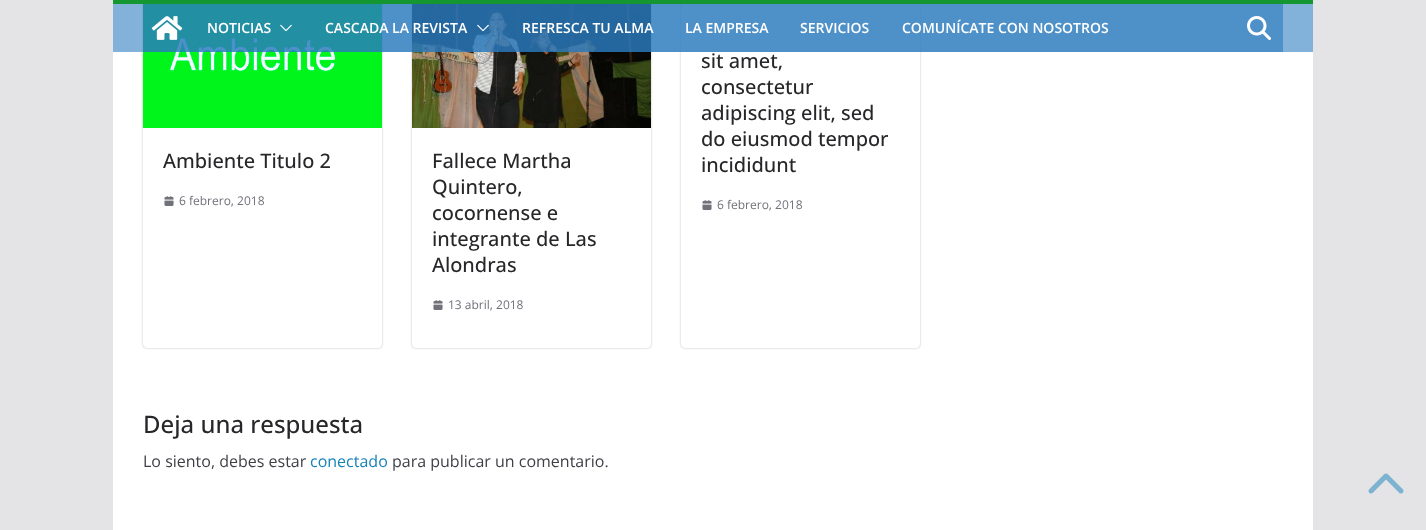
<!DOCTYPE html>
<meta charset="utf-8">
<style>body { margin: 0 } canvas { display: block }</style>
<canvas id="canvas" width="1426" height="530"></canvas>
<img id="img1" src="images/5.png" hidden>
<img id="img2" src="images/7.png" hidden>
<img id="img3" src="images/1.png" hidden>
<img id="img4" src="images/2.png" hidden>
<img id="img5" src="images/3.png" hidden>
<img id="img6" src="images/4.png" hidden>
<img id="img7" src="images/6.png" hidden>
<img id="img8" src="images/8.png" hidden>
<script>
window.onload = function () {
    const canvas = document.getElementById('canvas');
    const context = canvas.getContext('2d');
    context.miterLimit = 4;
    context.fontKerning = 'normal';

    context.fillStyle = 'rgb(228, 228, 231)';
    context.fillRect(0, 0, 1426, 530);
    context.fillStyle = 'rgb(255, 255, 255)';
    context.fillRect(113, 4, 1200, 526);
    context.save();
    context.beginPath();
    context.moveTo(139, 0);
    context.lineTo(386, 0);
    context.lineTo(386, 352);
    context.lineTo(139, 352);
    context.closePath();
    context.moveTo(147, 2);
    context.lineTo(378, 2);
    context.bezierCurveTo(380, 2, 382, 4, 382, 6);
    context.lineTo(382, 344);
    context.bezierCurveTo(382, 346, 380, 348, 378, 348);
    context.lineTo(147, 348);
    context.bezierCurveTo(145, 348, 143, 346, 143, 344);
    context.lineTo(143, 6);
    context.bezierCurveTo(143, 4, 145, 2, 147, 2);
    context.closePath();
    context.clip('evenodd');
    context.fillStyle = 'rgba(0, 0, 0, 0.24)';
    context.filter = 'blur(1px)';
    context.beginPath();
    context.roundRect(143, 2, 239, 346, 4);
    context.fill();
    context.filter = 'none';
    context.restore();
    context.drawImage(document.getElementById('img1'), 143, 4, 239, 124);
    context.save();
    context.beginPath();
    context.moveTo(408, 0);
    context.lineTo(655, 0);
    context.lineTo(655, 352);
    context.lineTo(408, 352);
    context.closePath();
    context.moveTo(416, 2);
    context.lineTo(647, 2);
    context.bezierCurveTo(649, 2, 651, 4, 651, 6);
    context.lineTo(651, 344);
    context.bezierCurveTo(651, 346, 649, 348, 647, 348);
    context.lineTo(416, 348);
    context.bezierCurveTo(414, 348, 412, 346, 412, 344);
    context.lineTo(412, 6);
    context.bezierCurveTo(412, 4, 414, 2, 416, 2);
    context.closePath();
    context.clip('evenodd');
    context.fillStyle = 'rgba(0, 0, 0, 0.24)';
    context.filter = 'blur(1px)';
    context.beginPath();
    context.roundRect(412, 2, 239, 346, 4);
    context.fill();
    context.filter = 'none';
    context.restore();
    context.drawImage(document.getElementById('img2'), 412, 4, 239, 124);
    context.save();
    context.beginPath();
    context.moveTo(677, 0);
    context.lineTo(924, 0);
    context.lineTo(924, 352);
    context.lineTo(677, 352);
    context.closePath();
    context.moveTo(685, 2);
    context.lineTo(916, 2);
    context.bezierCurveTo(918, 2, 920, 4, 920, 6);
    context.lineTo(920, 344);
    context.bezierCurveTo(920, 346, 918, 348, 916, 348);
    context.lineTo(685, 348);
    context.bezierCurveTo(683, 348, 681, 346, 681, 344);
    context.lineTo(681, 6);
    context.bezierCurveTo(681, 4, 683, 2, 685, 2);
    context.closePath();
    context.clip('evenodd');
    context.fillStyle = 'rgba(0, 0, 0, 0.24)';
    context.filter = 'blur(1px)';
    context.beginPath();
    context.roundRect(681, 2, 239, 346, 4);
    context.fill();
    context.filter = 'none';
    context.restore();
    context.fillStyle = 'rgba(43, 122, 191, 0.59)';
    context.fillRect(113, 4, 1200, 48);
    context.fillStyle = 'rgb(20, 150, 49)';
    context.fillRect(113, 0, 1200, 4);
    context.fillStyle = 'rgba(43, 122, 191, 0.59)';
    context.fillRect(143, 4, 1140, 48);
    context.drawImage(document.getElementById('img3'), 151, 16, 32, 24);
    context.drawImage(document.getElementById('img4'), 280, 24, 12, 8);
    context.drawImage(document.getElementById('img5'), 477, 24, 12, 8);
    context.drawImage(document.getElementById('img6'), 1247, 16, 24, 24);
    context.drawImage(document.getElementById('img7'), 164, 196, 10, 10);
    context.drawImage(document.getElementById('img7'), 433, 300, 10, 10);
    context.drawImage(document.getElementById('img7'), 702, 200, 10, 10);
    context.drawImage(document.getElementById('img8'), 1368, 473, 36, 21);
    context.font = '600 14px Open Sans';
    context.fillStyle = 'rgb(255, 255, 255)';
    context.fillText('NOTICIAS', 207, 33);
    context.fillText('CASCADA LA REVISTA', 325, 33);
    context.fillText('REFRESCA TU ALMA', 522, 33);
    context.fillText('LA EMPRESA', 685, 33);
    context.fillText('SERVICIOS', 800, 33);
    context.fillText('COMUNÍCATE CON NOSOTROS', 902, 33);
    context.font = '500 20px Open Sans';
    context.fillStyle = 'rgb(39, 39, 42)';
    context.fillText('Ambiente Titulo 2', 163, 168);
    context.font = '12px Open Sans';
    context.fillStyle = 'rgb(113, 113, 122)';
    context.fillText('6 febrero, 2018', 179, 205);
    context.font = '500 20px Open Sans';
    context.fillStyle = 'rgb(39, 39, 42)';
    context.fillText('Fallece Martha', 432, 168);
    context.fillText('Quintero,', 432, 194);
    context.fillText('cocornense e', 432, 220);
    context.fillText('integrante de Las', 432, 246);
    context.fillText('Alondras', 432, 272);
    context.font = '12px Open Sans';
    context.fillStyle = 'rgb(113, 113, 122)';
    context.fillText('13 abril, 2018', 448, 309);
    context.font = '500 20px Open Sans';
    context.fillStyle = 'rgb(39, 39, 42)';
    context.fillText('sit amet,', 701, 68);
    context.fillText('consectetur', 701, 94);
    context.fillText('adipiscing elit, sed', 701, 120);
    context.fillText('do eiusmod tempor', 701, 146);
    context.fillText('incididunt', 701, 172);
    context.font = '12px Open Sans';
    context.fillStyle = 'rgb(113, 113, 122)';
    context.fillText('6 febrero, 2018', 717, 209);
    context.font = '500 24px Open Sans';
    context.fillStyle = 'rgb(39, 39, 42)';
    context.fillText('Deja una respuesta', 143, 433);
    context.font = '16px Open Sans';
    context.fillStyle = 'rgb(63, 63, 70)';
    context.fillText('Lo siento, debes estar', 143, 467);
    context.fillStyle = 'rgb(22, 130, 185)';
    context.fillText('conectado', 310, 467);
    context.fillStyle = 'rgb(63, 63, 70)';
    context.fillText('para publicar un comentario.', 392, 467);
};
</script>
